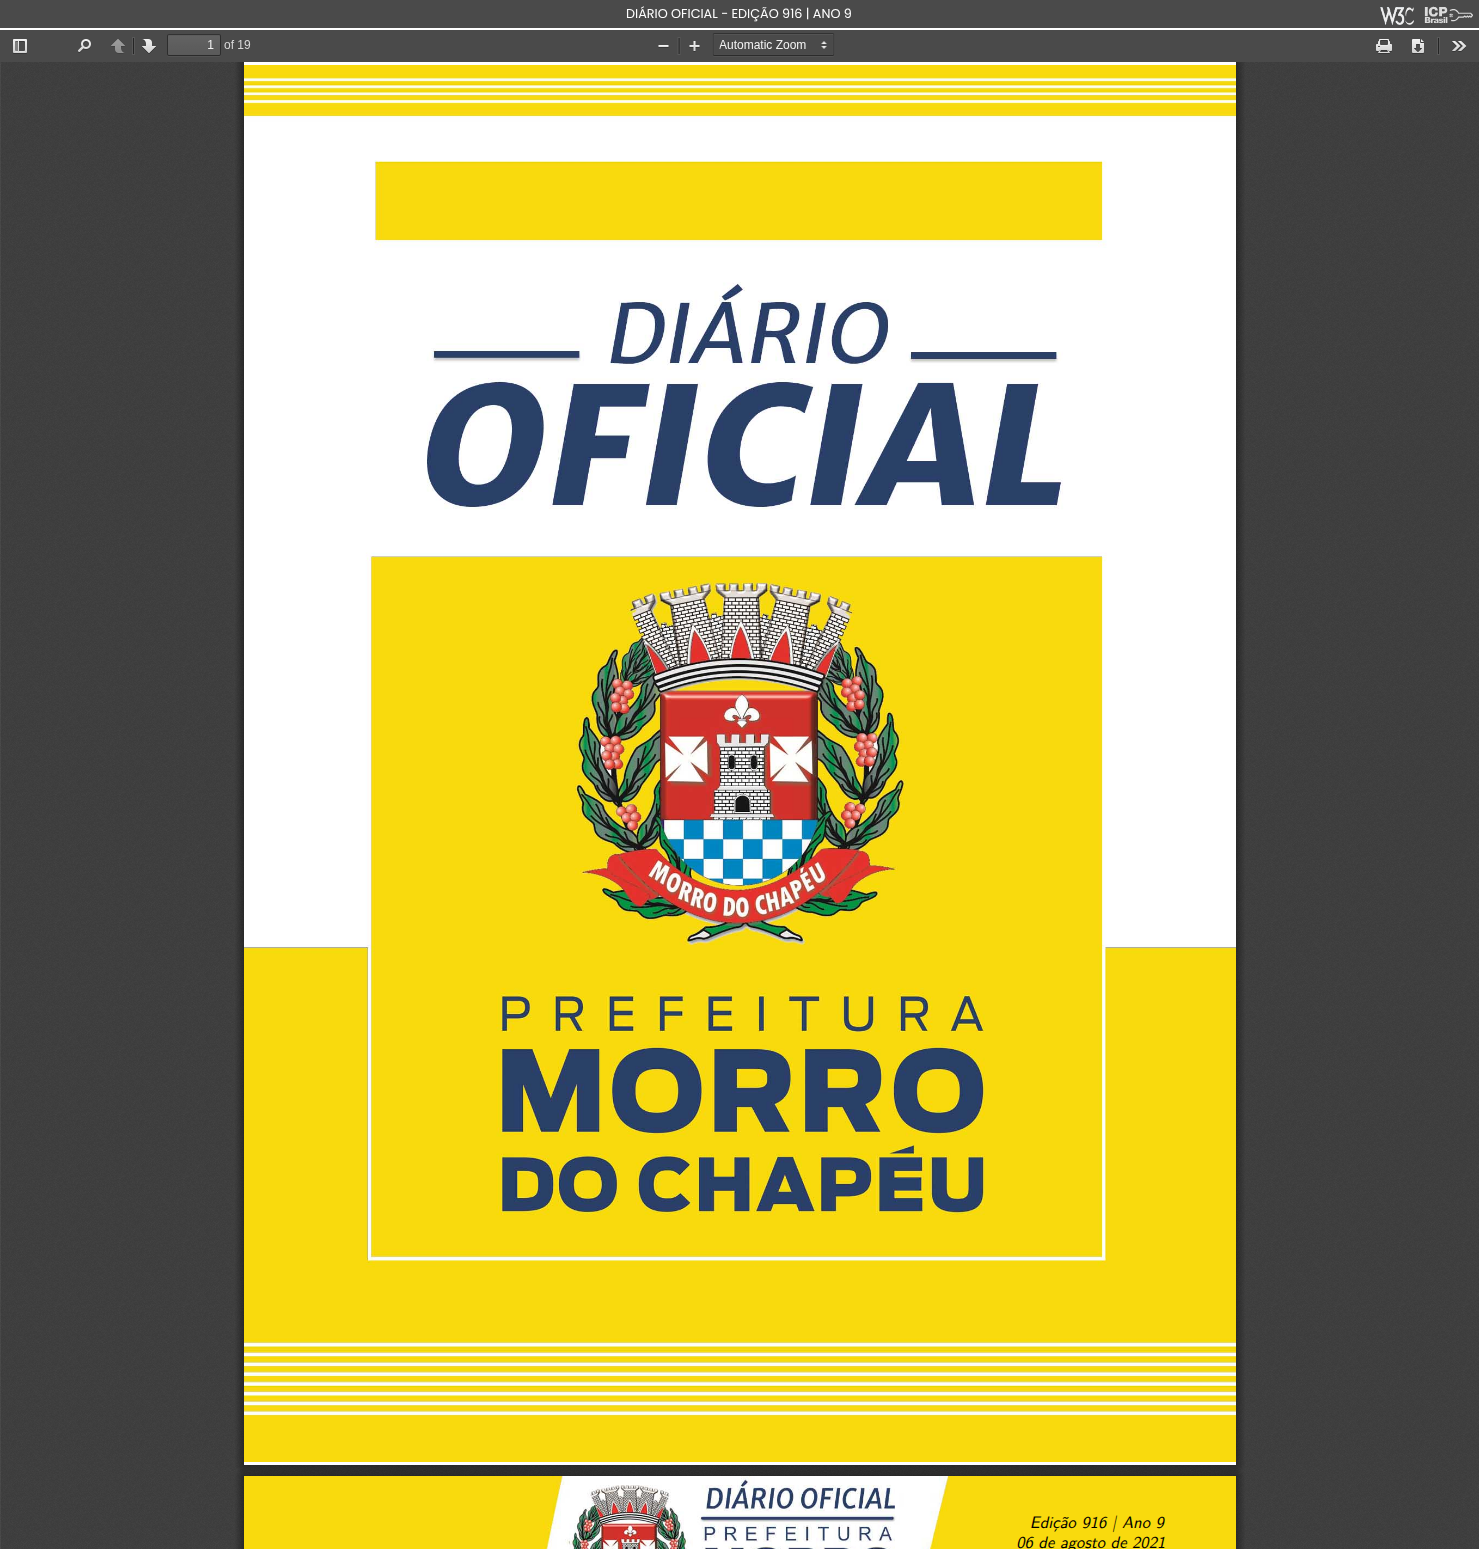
<!DOCTYPE html>
<meta charset="utf-8">
<style>body { margin: 0 } canvas { display: block }</style>
<canvas id="canvas" width="1479" height="1549"></canvas>
<img id="img1" src="images/1.png" hidden>
<img id="img2" src="images/2.png" hidden>
<img id="img3" src="images/3.png" hidden>
<script>
window.onload = function () {
    const canvas = document.getElementById('canvas');
    const context = canvas.getContext('2d');
    context.miterLimit = 4;
    context.fontKerning = 'normal';

    context.fillStyle = 'rgb(255, 255, 255)';
    context.fillRect(0, 0, 1479, 1549);
    context.fillStyle = 'rgb(74, 74, 74)';
    context.fillRect(0, 0, 1479, 28);
    context.drawImage(document.getElementById('img1'), 1380, 7, 34, 18);
    context.drawImage(document.getElementById('img2'), 1424, 6, 49, 18);
    context.drawImage(document.getElementById('img3'), 0, 30, 1479, 1519);
    context.font = '12.75px Poppins';
    context.fillStyle = 'rgb(255, 255, 255)';
    context.fillText('DIÁRIO OFICIAL - EDIÇÃO 916 | ANO 9', 626, 18);
};
</script>
